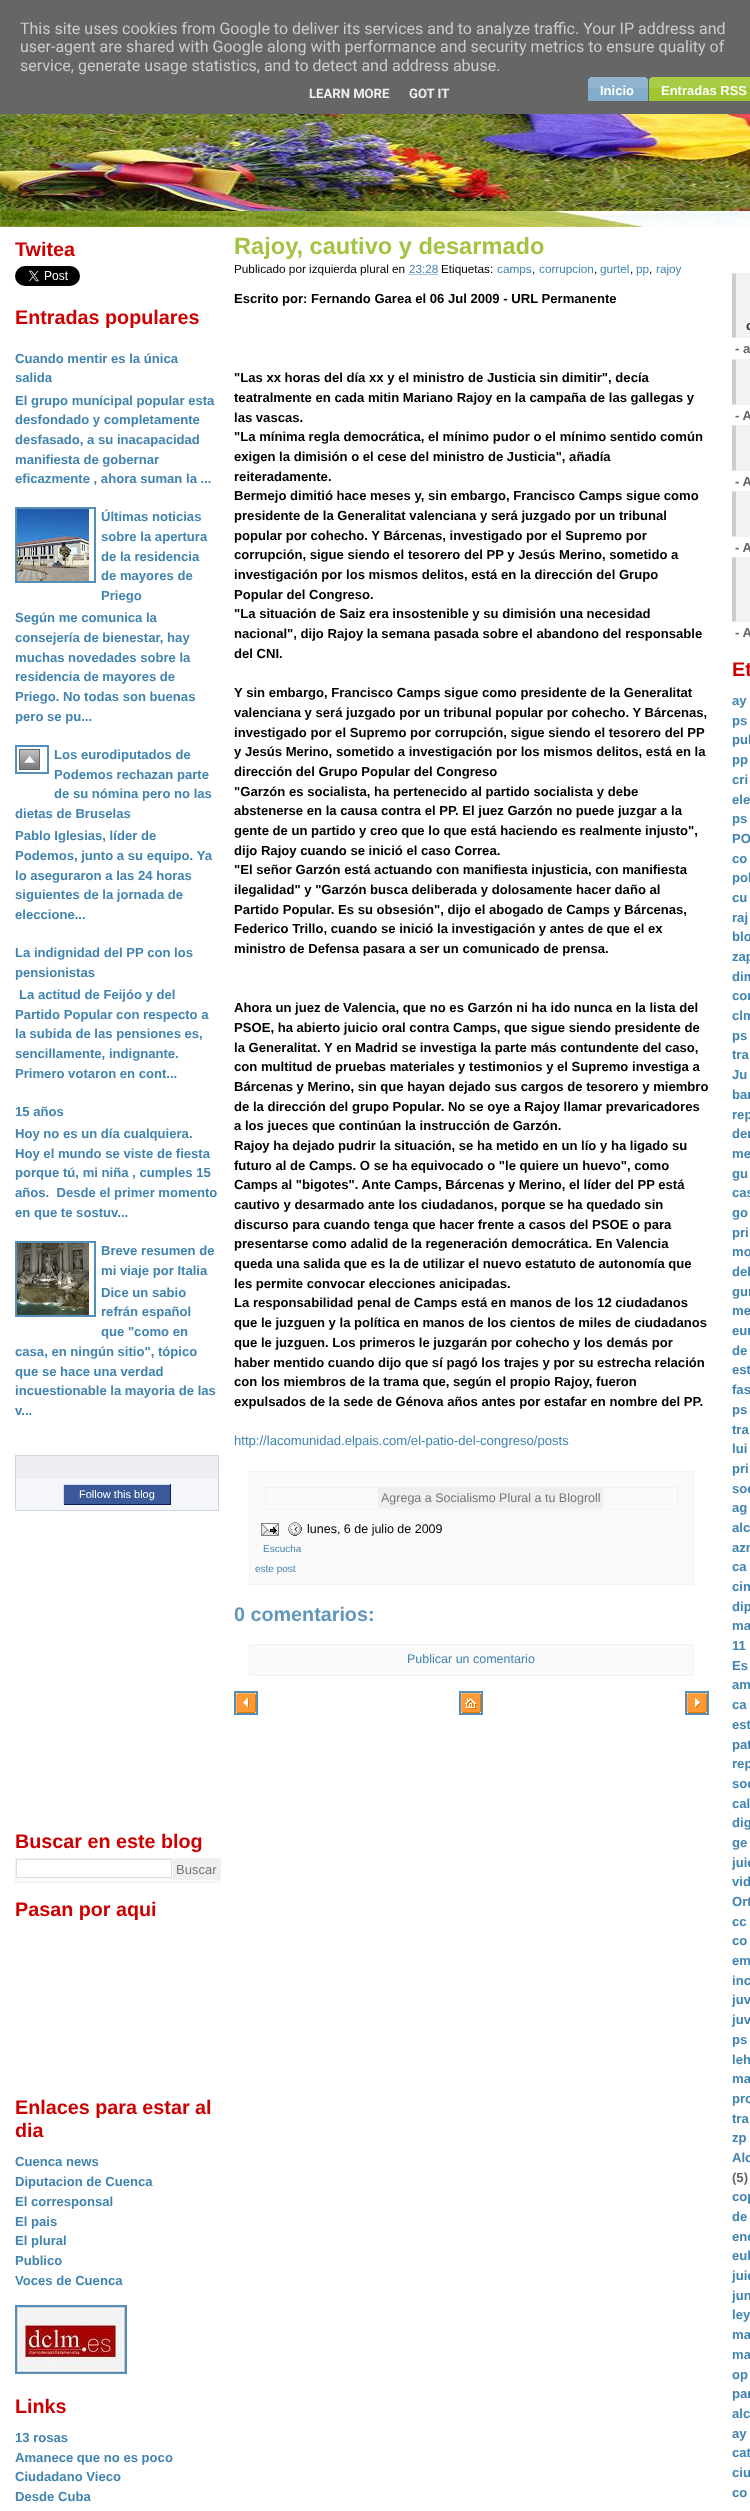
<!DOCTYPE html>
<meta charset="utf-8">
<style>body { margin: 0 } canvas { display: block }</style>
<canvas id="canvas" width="750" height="2511"></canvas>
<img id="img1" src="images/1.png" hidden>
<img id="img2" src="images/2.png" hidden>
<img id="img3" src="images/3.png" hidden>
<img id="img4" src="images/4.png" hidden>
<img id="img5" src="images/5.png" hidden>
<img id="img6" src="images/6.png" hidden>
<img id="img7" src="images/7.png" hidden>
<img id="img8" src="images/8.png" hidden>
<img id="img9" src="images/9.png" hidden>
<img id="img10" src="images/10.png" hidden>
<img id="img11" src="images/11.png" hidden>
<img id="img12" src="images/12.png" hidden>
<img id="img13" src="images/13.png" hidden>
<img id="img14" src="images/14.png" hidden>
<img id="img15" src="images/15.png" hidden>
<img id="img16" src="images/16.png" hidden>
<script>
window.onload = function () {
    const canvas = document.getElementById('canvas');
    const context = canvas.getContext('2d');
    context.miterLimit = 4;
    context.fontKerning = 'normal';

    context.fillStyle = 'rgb(255, 255, 255)';
    context.fillRect(0, 0, 750, 2511);
    context.fillStyle = 'rgb(102, 102, 102)';
    context.fillRect(0, 0, 750, 114);
    context.drawImage(document.getElementById('img1'), 588, 77, 4, 24);
    context.drawImage(document.getElementById('img2'), 592, 77, 56, 24);
    context.drawImage(document.getElementById('img3'), 649, 77, 4, 24);
    context.drawImage(document.getElementById('img4'), 653, 77, 97, 24);
    context.drawImage(document.getElementById('img5'), 0, 114, 750, 97);
    context.drawImage(document.getElementById('img6'), 0, 211, 750, 16);
    context.drawImage(document.getElementById('img7'), 15, 266, 65, 20);
    context.strokeStyle = 'rgb(86, 142, 182)';
    context.lineWidth = 2;
    context.strokeRect(16, 508, 79, 74);
    context.drawImage(document.getElementById('img8'), 17, 509, 72, 72);
    context.strokeRect(16, 746, 32, 27);
    context.drawImage(document.getElementById('img9'), 19, 749, 21, 21);
    context.strokeRect(16, 1242, 79, 74);
    context.drawImage(document.getElementById('img10'), 17, 1243, 72, 72);
    context.fillStyle = 'rgb(245, 246, 249)';
    context.fillRect(16, 1479, 202, 31);
    context.strokeStyle = 'rgb(209, 215, 223)';
    context.lineWidth = 1;
    context.strokeRect(15.5, 1455.5, 203, 55);
    context.fillStyle = 'rgb(237, 239, 244)';
    context.fillRect(16, 1456, 202, 23);
    context.fillStyle = 'rgb(59, 89, 152)';
    context.fillRect(64, 1485, 106, 19);
    context.fillStyle = 'rgb(217, 223, 234)';
    context.fillRect(63, 1484, 108, 1);
    context.fillStyle = 'rgb(14, 31, 91)';
    context.fillRect(170, 1484, 1, 21);
    context.fillRect(63, 1504, 108, 1);
    context.fillStyle = 'rgb(217, 223, 234)';
    context.fillRect(63, 1484, 1, 21);
    context.fillStyle = 'rgb(250, 250, 250)';
    context.beginPath();
    context.rect(15.5, 1858.5, 205, 24);
    context.fill();
    context.strokeStyle = 'rgb(242, 242, 242)';
    context.stroke();
    context.fillStyle = 'rgb(255, 255, 255)';
    context.beginPath();
    context.rect(16.5, 1859.5, 155, 18);
    context.fill();
    context.strokeStyle = 'rgb(221, 221, 221)';
    context.stroke();
    context.fillStyle = 'rgb(239, 239, 239)';
    context.fillRect(173, 1859, 47, 21);
    context.strokeStyle = 'rgb(86, 142, 182)';
    context.lineWidth = 2;
    context.strokeRect(16, 2306, 110, 67);
    context.drawImage(document.getElementById('img11'), 17, 2307, 108, 65);
    context.beginPath();
    context.moveTo(408.5, 274.5);
    context.lineTo(438, 274.5);
    context.strokeStyle = 'rgb(66, 132, 176)';
    context.lineWidth = 1;
    context.setLineDash([1, 1]);
    context.stroke();
    context.fillStyle = 'rgb(250, 250, 250)';
    context.beginPath();
    context.rect(249.5, 1471.5, 444, 113);
    context.fill();
    context.strokeStyle = 'rgb(242, 242, 242)';
    context.setLineDash([]);
    context.stroke();
    context.strokeRect(265.5, 1487.5, 412, 22);
    context.fillStyle = 'rgb(239, 239, 239)';
    context.fillRect(378, 1488, 225, 20);
    context.drawImage(document.getElementById('img12'), 261, 1523, 18, 13);
    context.drawImage(document.getElementById('img13'), 287, 1522, 16, 14);
    context.fillStyle = 'rgb(250, 250, 250)';
    context.beginPath();
    context.rect(249.5, 1644.5, 444, 31);
    context.fill();
    context.stroke();
    context.strokeStyle = 'rgb(86, 142, 182)';
    context.lineWidth = 2;
    context.strokeRect(235, 1692, 22, 22);
    context.drawImage(document.getElementById('img14'), 236, 1693, 20, 20);
    context.strokeRect(460, 1692, 22, 22);
    context.strokeRect(686, 1692, 22, 22);
    context.drawImage(document.getElementById('img15'), 687, 1693, 20, 20);
    context.drawImage(document.getElementById('img16'), 461, 1693, 20, 20);
    context.fillStyle = 'rgb(242, 242, 242)';
    context.fillRect(736, 274, 14, 63);
    context.beginPath();
    context.moveTo(732, 273);
    context.lineTo(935, 273);
    context.lineTo(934, 274);
    context.lineTo(736, 274);
    context.closePath();
    context.fill();
    context.beginPath();
    context.moveTo(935, 338);
    context.lineTo(732, 338);
    context.lineTo(736, 337);
    context.lineTo(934, 337);
    context.closePath();
    context.fill();
    context.fillStyle = 'rgb(204, 204, 204)';
    context.beginPath();
    context.moveTo(732, 338);
    context.lineTo(732, 273);
    context.lineTo(736, 274);
    context.lineTo(736, 337);
    context.closePath();
    context.fill();
    context.fillStyle = 'rgb(242, 242, 242)';
    context.fillRect(736, 360, 14, 44);
    context.beginPath();
    context.moveTo(732, 359);
    context.lineTo(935, 359);
    context.lineTo(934, 360);
    context.lineTo(736, 360);
    context.closePath();
    context.moveTo(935, 405);
    context.lineTo(732, 405);
    context.lineTo(736, 404);
    context.lineTo(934, 404);
    context.closePath();
    context.fill();
    context.fillStyle = 'rgb(204, 204, 204)';
    context.beginPath();
    context.moveTo(732, 405);
    context.lineTo(732, 359);
    context.lineTo(736, 360);
    context.lineTo(736, 404);
    context.closePath();
    context.fill();
    context.fillStyle = 'rgb(242, 242, 242)';
    context.fillRect(736, 426, 14, 44);
    context.beginPath();
    context.moveTo(732, 425);
    context.lineTo(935, 425);
    context.lineTo(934, 426);
    context.lineTo(736, 426);
    context.closePath();
    context.moveTo(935, 471);
    context.lineTo(732, 471);
    context.lineTo(736, 470);
    context.lineTo(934, 470);
    context.closePath();
    context.fill();
    context.fillStyle = 'rgb(204, 204, 204)';
    context.beginPath();
    context.moveTo(732, 471);
    context.lineTo(732, 425);
    context.lineTo(736, 426);
    context.lineTo(736, 470);
    context.closePath();
    context.fill();
    context.fillStyle = 'rgb(242, 242, 242)';
    context.fillRect(736, 492, 14, 44);
    context.beginPath();
    context.moveTo(732, 491);
    context.lineTo(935, 491);
    context.lineTo(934, 492);
    context.lineTo(736, 492);
    context.closePath();
    context.moveTo(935, 537);
    context.lineTo(732, 537);
    context.lineTo(736, 536);
    context.lineTo(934, 536);
    context.closePath();
    context.fill();
    context.fillStyle = 'rgb(204, 204, 204)';
    context.beginPath();
    context.moveTo(732, 537);
    context.lineTo(732, 491);
    context.lineTo(736, 492);
    context.lineTo(736, 536);
    context.closePath();
    context.fill();
    context.fillStyle = 'rgb(242, 242, 242)';
    context.fillRect(736, 558, 14, 63);
    context.beginPath();
    context.moveTo(732, 557);
    context.lineTo(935, 557);
    context.lineTo(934, 558);
    context.lineTo(736, 558);
    context.closePath();
    context.fill();
    context.beginPath();
    context.moveTo(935, 622);
    context.lineTo(732, 622);
    context.lineTo(736, 621);
    context.lineTo(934, 621);
    context.closePath();
    context.fill();
    context.fillStyle = 'rgb(204, 204, 204)';
    context.beginPath();
    context.moveTo(732, 622);
    context.lineTo(732, 557);
    context.lineTo(736, 558);
    context.lineTo(736, 621);
    context.closePath();
    context.fill();
    context.font = '16px Roboto';
    context.fillText('This site uses cookies from Google to deliver its services and to analyze traffic. Your IP address and', 20, 34);
    context.fillText('user-agent are shared with Google along with performance and security metrics to ensure quality of', 20, 52);
    context.fillText('service, generate usage statistics, and to detect and address abuse.', 20, 71);
    context.font = 'bold 13.1px Roboto';
    context.fillStyle = 'rgb(238, 238, 238)';
    context.fillText('LEARN MORE', 309, 98);
    context.fillText('GOT IT', 409, 98);
    context.font = 'bold 13px Liberation Sans';
    context.fillStyle = 'rgb(255, 255, 255)';
    context.fillText('Inicio', 600, 95);
    context.fillText('Entradas RSS', 661, 95);
    context.font = 'bold 19.75px Liberation Sans';
    context.fillStyle = 'rgb(204, 0, 0)';
    context.fillText('Twitea', 15, 256);
    context.fillText('Entradas populares', 15, 324);
    context.font = 'bold 13.1px Liberation Sans';
    context.fillStyle = 'rgb(66, 132, 176)';
    context.fillText('Cuando mentir es la única', 15, 363);
    context.fillText('salida', 15, 382);
    context.fillText('El grupo munícipal popular esta', 15, 405);
    context.fillText('desfondado y completamente', 15, 424);
    context.fillText('desfasado, a su inacapacidad', 15, 444);
    context.fillText('manifiesta de gobernar', 15, 464);
    context.fillText('eficazmente , ahora suman la ...', 15, 483);
    context.fillText('Últimas noticias', 101, 521);
    context.fillText('sobre la apertura', 101, 541);
    context.fillText('de la residencia', 101, 561);
    context.fillText('de mayores de', 101, 580);
    context.fillText('Priego', 101, 600);
    context.fillText('Según me comunica la', 15, 622);
    context.fillText('consejería de bienestar, hay', 15, 642);
    context.fillText('muchas novedades sobre la', 15, 662);
    context.fillText('residencia de mayores de', 15, 681);
    context.fillText('Priego. No todas son buenas', 15, 701);
    context.fillText('pero se pu...', 15, 721);
    context.fillText('Los eurodiputados de', 54, 759);
    context.fillText('Podemos rechazan parte', 54, 779);
    context.fillText('de su nómina pero no las', 54, 798);
    context.fillText('dietas de Bruselas', 15, 818);
    context.fillText('Pablo Iglesias, líder de', 15, 840);
    context.fillText('Podemos, junto a su equipo. Ya', 15, 860);
    context.fillText('lo aseguraron a las 24 horas', 15, 880);
    context.fillText('siguientes de la jornada de', 15, 899);
    context.fillText('eleccione...', 15, 919);
    context.fillText('La indignidad del PP con los', 15, 957);
    context.fillText('pensionistas', 15, 977);
    context.fillText('La actitud de Feijóo y del', 19, 999);
    context.fillText('Partido Popular con respecto a', 15, 1019);
    context.fillText('la subida de las pensiones es,', 15, 1038);
    context.fillText('sencillamente, indignante.', 15, 1058);
    context.fillText('Primero votaron en cont...', 15, 1078);
    context.fillText('15 años', 15, 1116);
    context.fillText('Hoy no es un día cualquiera.', 15, 1138);
    context.fillText('Hoy el mundo se viste de fiesta', 15, 1158);
    context.fillText('porque tú, mi niña , cumples 15', 15, 1177);
    context.fillText('años.  Desde el primer momento', 15, 1197);
    context.fillText('en que te sostuv...', 15, 1217);
    context.fillText('Breve resumen de', 101, 1255);
    context.fillText('mi viaje por Italia', 101, 1275);
    context.fillText('Dice un sabio', 101, 1297);
    context.fillText('refrán español', 101, 1316);
    context.fillText('que "como en', 101, 1336);
    context.fillText('casa, en ningún sitio", tópico', 15, 1356);
    context.fillText('que se hace una verdad', 15, 1376);
    context.fillText('incuestionable la mayoria de las', 15, 1395);
    context.fillText('v...', 15, 1415);
    context.font = '11px Liberation Sans';
    context.fillStyle = 'rgb(255, 255, 255)';
    context.fillText('Follow this blog', 79, 1498);
    context.font = 'bold 19.75px Liberation Sans';
    context.fillStyle = 'rgb(204, 0, 0)';
    context.fillText('Buscar en este blog', 15, 1848);
    context.font = '13px Liberation Sans';
    context.fillStyle = 'rgb(119, 119, 119)';
    context.fillText('Buscar', 176, 1874);
    context.font = 'bold 19.75px Liberation Sans';
    context.fillStyle = 'rgb(204, 0, 0)';
    context.fillText('Pasan por aqui', 15, 1916);
    context.fillText('Enlaces para estar al', 15, 2114);
    context.fillText('dia', 15, 2137);
    context.font = 'bold 13.1px Liberation Sans';
    context.fillStyle = 'rgb(66, 132, 176)';
    context.fillText('Cuenca news', 15, 2166);
    context.fillText('Diputacion de Cuenca', 15, 2186);
    context.fillText('El corresponsal', 15, 2206);
    context.fillText('El pais', 15, 2226);
    context.fillText('El plural', 15, 2245);
    context.fillText('Publico', 15, 2265);
    context.fillText('Voces de Cuenca', 15, 2285);
    context.font = 'bold 19.75px Liberation Sans';
    context.fillStyle = 'rgb(204, 0, 0)';
    context.fillText('Links', 15, 2413);
    context.font = 'bold 13.1px Liberation Sans';
    context.fillStyle = 'rgb(66, 132, 176)';
    context.fillText('13 rosas', 15, 2442);
    context.fillText('Amanece que no es poco', 15, 2462);
    context.fillText('Ciudadano Vieco', 15, 2481);
    context.fillText('Desde Cuba', 15, 2501);
    context.font = 'bold 23.6px Liberation Sans';
    context.fillStyle = 'rgb(161, 196, 66)';
    context.fillText('Rajoy, cautivo y desarmado', 234, 254);
    context.font = '11.75px Liberation Sans';
    context.fillStyle = 'rgb(0, 0, 0)';
    context.fillText('Publicado por izquierda plural en', 234, 273);
    context.fillStyle = 'rgb(66, 132, 176)';
    context.fillText('23:28', 409, 273);
    context.fillStyle = 'rgb(0, 0, 0)';
    context.fillText('Etiquetas:', 441, 273);
    context.fillStyle = 'rgb(66, 132, 176)';
    context.fillText('camps', 497, 273);
    context.fillStyle = 'rgb(0, 0, 0)';
    context.fillText(',', 532, 273);
    context.fillStyle = 'rgb(66, 132, 176)';
    context.fillText('corrupcion', 539, 273);
    context.fillStyle = 'rgb(0, 0, 0)';
    context.fillText(',', 594, 273);
    context.fillStyle = 'rgb(66, 132, 176)';
    context.fillText('gurtel', 600, 273);
    context.fillStyle = 'rgb(0, 0, 0)';
    context.fillText(',', 630, 273);
    context.fillStyle = 'rgb(66, 132, 176)';
    context.fillText('pp', 636, 273);
    context.fillStyle = 'rgb(0, 0, 0)';
    context.fillText(',', 649, 273);
    context.fillStyle = 'rgb(66, 132, 176)';
    context.fillText('rajoy', 656, 273);
    context.font = 'bold 13.1px Liberation Sans';
    context.fillStyle = 'rgb(0, 0, 0)';
    context.fillText('Escrito por: Fernando Garea el 06 Jul 2009 - URL Permanente', 234, 303);
    context.fillText('"Las xx horas del día xx y el ministro de Justicia sin dimitir", decía', 234, 382);
    context.fillText('teatralmente en cada mitin Mariano Rajoy en la campaña de las gallegas y', 234, 402);
    context.fillText('las vascas.', 234, 422);
    context.fillText('"La mínima regla democrática, el mínimo pudor o el mínimo sentido común', 234, 441);
    context.fillText('exigen la dimisión o el cese del ministro de Justicia", añadía', 234, 461);
    context.fillText('reiteradamente.', 234, 481);
    context.fillText('Bermejo dimitió hace meses y, sin embargo, Francisco Camps sigue como', 234, 500);
    context.fillText('presidente de la Generalitat valenciana y será juzgado por un tribunal', 234, 520);
    context.fillText('popular por cohecho. Y Bárcenas, investigado por el Supremo por', 234, 540);
    context.fillText('corrupción, sigue siendo el tesorero del PP y Jesús Merino, sometido a', 234, 559);
    context.fillText('investigación por los mismos delitos, está en la dirección del Grupo', 234, 579);
    context.fillText('Popular del Congreso.', 234, 599);
    context.fillText('"La situación de Saiz era insostenible y su dimisión una necesidad', 234, 618);
    context.fillText('nacional", dijo Rajoy la semana pasada sobre el abandono del responsable', 234, 638);
    context.fillText('del CNI.', 234, 658);
    context.fillText('Y sin embargo, Francisco Camps sigue como presidente de la Generalitat', 234, 697);
    context.fillText('valenciana y será juzgado por un tribunal popular por cohecho. Y Bárcenas,', 234, 717);
    context.fillText('investigado por el Supremo por corrupción, sigue siendo el tesorero del PP', 234, 737);
    context.fillText('y Jesús Merino, sometido a investigación por los mismos delitos, está en la', 234, 756);
    context.fillText('dirección del Grupo Popular del Congreso', 234, 776);
    context.fillText('"Garzón es socialista, ha pertenecido al partido socialista y debe', 234, 796);
    context.fillText('abstenerse en la causa contra el PP. El juez Garzón no puede juzgar a la', 234, 815);
    context.fillText('gente de un partido y creo que lo que está haciendo es realmente injusto",', 234, 835);
    context.fillText('dijo Rajoy cuando se inició el caso Correa.', 234, 855);
    context.fillText('"El señor Garzón está actuando con manifiesta injusticia, con manifiesta', 234, 874);
    context.fillText('ilegalidad" y "Garzón busca deliberada y dolosamente hacer daño al', 234, 894);
    context.fillText('Partido Popular. Es su obsesión", dijo el abogado de Camps y Bárcenas,', 234, 914);
    context.fillText('Federico Trillo, cuando se inició la investigación y antes de que el ex', 234, 933);
    context.fillText('ministro de Defensa pasara a ser un comunicado de prensa.', 234, 953);
    context.fillText('Ahora un juez de Valencia, que no es Garzón ni ha ido nunca en la lista del', 234, 1012);
    context.fillText('PSOE, ha abierto juicio oral contra Camps, que sigue siendo presidente de', 234, 1032);
    context.fillText('la Generalitat. Y en Madrid se investiga la parte más contundente del caso,', 234, 1052);
    context.fillText('con multitud de pruebas materiales y testimonios y el Supremo investiga a', 234, 1071);
    context.fillText('Bárcenas y Merino, sin que hayan dejado sus cargos de tesorero y miembro', 234, 1091);
    context.fillText('de la dirección del grupo Popular. No se oye a Rajoy llamar prevaricadores', 234, 1111);
    context.fillText('a los jueces que continúan la instrucción de Garzón.', 234, 1130);
    context.fillText('Rajoy ha dejado pudrir la situación, se ha metido en un lío y ha ligado su', 234, 1150);
    context.fillText('futuro al de Camps. O se ha equivocado o "le quiere un huevo", como', 234, 1170);
    context.fillText('Camps al "bigotes". Ante Camps, Bárcenas y Merino, el líder del PP está', 234, 1189);
    context.fillText('cautivo y desarmado ante los ciudadanos, porque se ha quedado sin', 234, 1209);
    context.fillText('discurso para cuando tenga que hacer frente a casos del PSOE o para', 234, 1229);
    context.fillText('presentarse como adalid de la regeneración democrática. En Valencia', 234, 1248);
    context.fillText('queda una salida que es la de utilizar el nuevo estatuto de autonomía que', 234, 1268);
    context.fillText('les permite convocar elecciones anicipadas.', 234, 1288);
    context.fillText('La responsabilidad penal de Camps está en manos de los 12 ciudadanos', 234, 1307);
    context.fillText('que le juzguen y la política en manos de los cientos de miles de ciudadanos', 234, 1327);
    context.fillText('que le juzguen. Los primeros le juzgarán por cohecho y los demás por', 234, 1347);
    context.fillText('haber mentido cuando dijo que sí pagó los trajes y por su estrecha relación', 234, 1367);
    context.fillText('con los miembros de la trama que, según el propio Rajoy, fueron', 234, 1386);
    context.fillText('expulsados de la sede de Génova años antes por estafar en nombre del PP.', 234, 1406);
    context.font = '13.1px Liberation Sans';
    context.fillStyle = 'rgb(66, 132, 176)';
    context.fillText('http://lacomunidad.elpais.com/el-patio-del-congreso/posts', 234, 1445);
    context.font = '12.5px Liberation Sans';
    context.fillStyle = 'rgb(119, 119, 119)';
    context.fillText('Agrega a Socialismo Plural a tu Blogroll', 381, 1502);
    context.fillStyle = 'rgb(0, 0, 0)';
    context.fillText('lunes, 6 de julio de 2009', 307, 1533);
    context.font = '10px Liberation Sans';
    context.fillStyle = 'rgb(66, 132, 176)';
    context.fillText('Escucha', 263, 1552);
    context.fillText('este post', 255, 1572);
    context.font = 'bold 19.75px Liberation Sans';
    context.fillStyle = 'rgb(98, 151, 188)';
    context.fillText('0 comentarios:', 234, 1621);
    context.font = '12.5px Liberation Sans';
    context.fillStyle = 'rgb(66, 132, 176)';
    context.fillText('Publicar un comentario', 407, 1663);
    context.font = 'bold 13.1px Liberation Sans';
    context.fillStyle = 'rgb(51, 51, 51)';
    context.fillText('c', 746, 330);
    context.fillStyle = 'rgb(102, 102, 102)';
    context.fillText('- a', 735, 353);
    context.fillText('- A', 735, 420);
    context.fillText('- A', 735, 486);
    context.fillText('- A', 735, 552);
    context.fillText('- A', 735, 637);
    context.font = 'bold 19.75px Liberation Sans';
    context.fillStyle = 'rgb(204, 0, 0)';
    context.fillText('Et', 732, 676);
    context.font = 'bold 13.1px Liberation Sans';
    context.fillStyle = 'rgb(66, 132, 176)';
    context.fillText('ay', 732, 705);
    context.fillText('ps', 732, 725);
    context.fillText('pul', 732, 744);
    context.fillText('pp', 732, 764);
    context.fillText('cri', 732, 784);
    context.fillText('ele', 732, 804);
    context.fillText('ps', 732, 823);
    context.fillText('PO', 732, 843);
    context.fillText('co', 732, 863);
    context.fillText('pol', 732, 882);
    context.fillText('cu', 732, 902);
    context.fillText('raj', 732, 922);
    context.fillText('blo', 732, 941);
    context.fillText('zap', 732, 961);
    context.fillText('dim', 732, 981);
    context.fillText('cor', 732, 1000);
    context.fillText('clm', 732, 1020);
    context.fillText('ps', 732, 1040);
    context.fillText('tra', 732, 1059);
    context.fillText('Ju', 732, 1079);
    context.fillText('bar', 732, 1099);
    context.fillText('rep', 732, 1119);
    context.fillText('der', 732, 1138);
    context.fillText('me', 732, 1158);
    context.fillText('gu', 732, 1178);
    context.fillText('cas', 732, 1197);
    context.fillText('go', 732, 1217);
    context.fillText('pri', 732, 1237);
    context.fillText('mo', 732, 1256);
    context.fillText('deb', 732, 1276);
    context.fillText('gur', 732, 1296);
    context.fillText('me', 732, 1315);
    context.fillText('eur', 732, 1335);
    context.fillText('de', 732, 1355);
    context.fillText('est', 732, 1374);
    context.fillText('fas', 732, 1394);
    context.fillText('ps', 732, 1414);
    context.fillText('tra', 732, 1434);
    context.fillText('lui', 732, 1453);
    context.fillText('pri', 732, 1473);
    context.fillText('soc', 732, 1493);
    context.fillText('ag', 732, 1512);
    context.fillText('alc', 732, 1532);
    context.fillText('azn', 732, 1552);
    context.fillText('ca', 732, 1571);
    context.fillText('cin', 732, 1591);
    context.fillText('dip', 732, 1611);
    context.fillText('ma', 732, 1630);
    context.fillText('11', 732, 1650);
    context.fillText('Es', 732, 1670);
    context.fillText('am', 732, 1689);
    context.fillText('ca', 732, 1709);
    context.fillText('est', 732, 1729);
    context.fillText('pat', 732, 1749);
    context.fillText('rep', 732, 1768);
    context.fillText('soc', 732, 1788);
    context.fillText('cal', 732, 1808);
    context.fillText('dig', 732, 1827);
    context.fillText('ge', 732, 1847);
    context.fillText('juic', 732, 1867);
    context.fillText('vid', 732, 1886);
    context.fillText('Ort', 732, 1906);
    context.fillText('cc', 732, 1926);
    context.fillText('co', 732, 1945);
    context.fillText('em', 732, 1965);
    context.fillText('inc', 732, 1985);
    context.fillText('juv', 732, 2004);
    context.fillText('juv', 732, 2024);
    context.fillText('ps', 732, 2044);
    context.fillText('leh', 732, 2064);
    context.fillText('ma', 732, 2083);
    context.fillText('pro', 732, 2103);
    context.fillText('tra', 732, 2123);
    context.fillText('zp', 732, 2142);
    context.fillText('Alc', 732, 2162);
    context.fillStyle = 'rgb(102, 102, 102)';
    context.fillText('(5)', 732, 2182);
    context.fillStyle = 'rgb(66, 132, 176)';
    context.fillText('cop', 732, 2201);
    context.fillText('de', 732, 2221);
    context.fillText('enc', 732, 2241);
    context.fillText('eul', 732, 2260);
    context.fillText('juic', 732, 2280);
    context.fillText('jun', 732, 2300);
    context.fillText('ley', 732, 2319);
    context.fillText('ma', 732, 2339);
    context.fillText('ma', 732, 2359);
    context.fillText('op', 732, 2379);
    context.fillText('par', 732, 2398);
    context.fillText('alc', 732, 2418);
    context.fillText('ay', 732, 2438);
    context.fillText('cat', 732, 2457);
    context.fillText('ciu', 732, 2477);
    context.fillText('co', 732, 2497);
};
</script>
